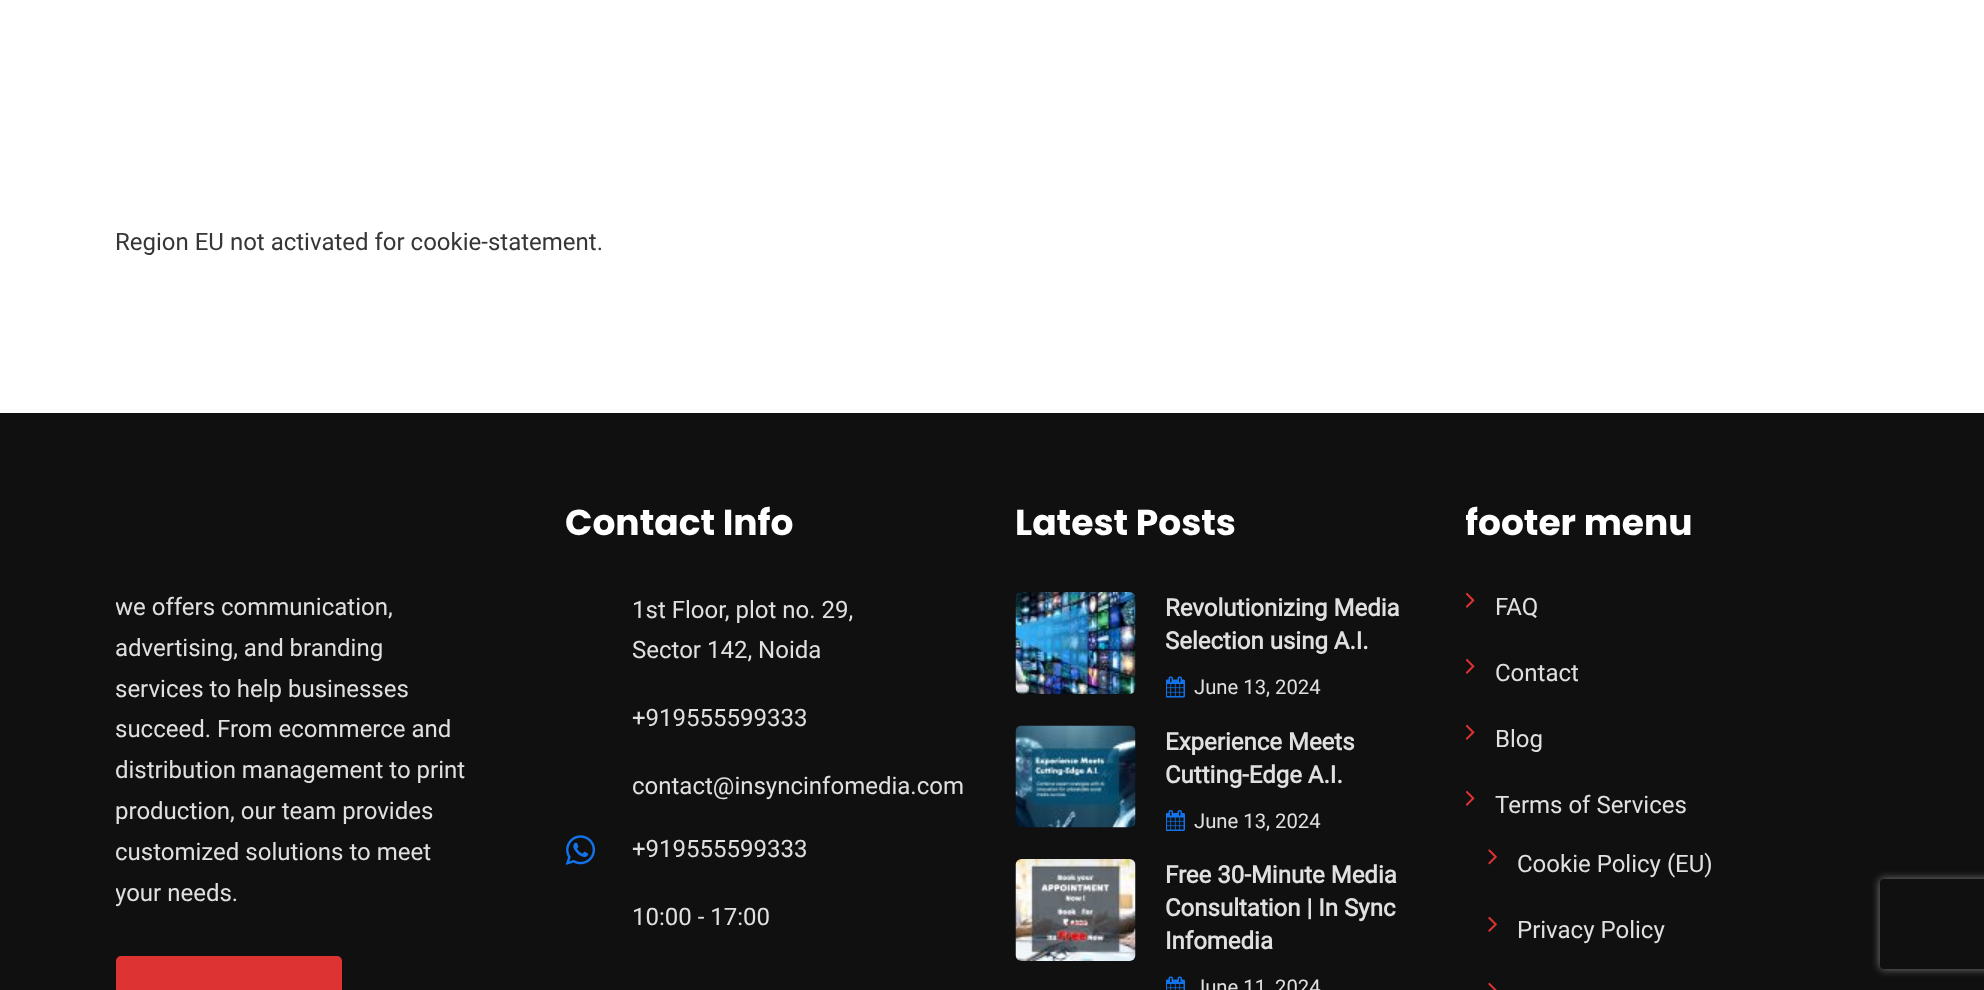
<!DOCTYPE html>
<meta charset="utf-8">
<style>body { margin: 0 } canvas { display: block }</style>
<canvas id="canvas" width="1984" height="990"></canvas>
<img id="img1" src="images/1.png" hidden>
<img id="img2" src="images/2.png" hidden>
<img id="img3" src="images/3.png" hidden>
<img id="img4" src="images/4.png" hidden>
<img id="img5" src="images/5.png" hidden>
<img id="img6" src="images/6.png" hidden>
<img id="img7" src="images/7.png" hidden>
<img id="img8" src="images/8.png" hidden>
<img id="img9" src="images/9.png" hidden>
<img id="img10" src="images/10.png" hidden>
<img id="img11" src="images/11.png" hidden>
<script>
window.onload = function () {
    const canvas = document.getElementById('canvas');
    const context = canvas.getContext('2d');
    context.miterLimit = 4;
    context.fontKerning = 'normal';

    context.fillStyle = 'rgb(255, 255, 255)';
    context.fillRect(0, 0, 1984, 990);
    context.fillStyle = 'rgb(16, 16, 16)';
    context.fillRect(0, 413, 1984, 577);
    context.fillStyle = 'rgb(221, 51, 51)';
    context.beginPath();
    context.roundRect(116, 956, 226, 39, 5);
    context.fill();
    context.drawImage(document.getElementById('img1'), 566, 835, 30, 30);
    context.drawImage(document.getElementById('img2'), 1015, 592, 121, 102);
    context.drawImage(document.getElementById('img3'), 1166, 676, 19, 22);
    context.drawImage(document.getElementById('img4'), 1015, 725, 121, 103);
    context.drawImage(document.getElementById('img5'), 1166, 810, 19, 21);
    context.drawImage(document.getElementById('img6'), 1015, 859, 121, 102);
    context.drawImage(document.getElementById('img7'), 1166, 976, 19, 14);
    context.drawImage(document.getElementById('img8'), 1466, 592, 9, 16);
    context.drawImage(document.getElementById('img8'), 1466, 658, 9, 16);
    context.drawImage(document.getElementById('img8'), 1466, 724, 9, 16);
    context.drawImage(document.getElementById('img8'), 1466, 790, 9, 16);
    context.drawImage(document.getElementById('img9'), 1488, 849, 9, 16);
    context.drawImage(document.getElementById('img10'), 1488, 916, 9, 16);
    context.drawImage(document.getElementById('img11'), 1488, 982, 9, 8);
    context.save();
    context.beginPath();
    context.moveTo(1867, 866);
    context.lineTo(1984, 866);
    context.lineTo(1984, 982);
    context.lineTo(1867, 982);
    context.closePath();
    context.moveTo(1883, 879);
    context.lineTo(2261, 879);
    context.bezierCurveTo(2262.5, 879, 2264, 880.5, 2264, 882);
    context.lineTo(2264, 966);
    context.bezierCurveTo(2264, 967.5, 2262.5, 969, 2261, 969);
    context.lineTo(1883, 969);
    context.bezierCurveTo(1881.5, 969, 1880, 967.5, 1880, 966);
    context.lineTo(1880, 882);
    context.bezierCurveTo(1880, 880.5, 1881.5, 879, 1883, 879);
    context.closePath();
    context.clip('evenodd');
    context.fillStyle = 'rgb(128, 128, 128)';
    context.filter = 'blur(4px)';
    context.beginPath();
    context.roundRect(1880, 879, 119, 90, 3);
    context.fill();
    context.filter = 'none';
    context.restore();
    context.font = '24px Roboto';
    context.fillStyle = 'rgb(54, 54, 54)';
    context.fillText('Region EU not activated for cookie-statement.', 115, 250);
    context.save();
    context.beginPath();
    context.rect(116, 587, 352, 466);
    context.clip();
    context.fillStyle = 'rgb(224, 224, 224)';
    context.fillText('we offers communication,', 115, 615);
    context.restore();
    context.fillStyle = 'rgb(224, 224, 224)';
    context.fillText('advertising, and branding', 115, 656);
    context.fillText('services to help businesses', 115, 697);
    context.fillText('succeed. From ecommerce and', 115, 737);
    context.save();
    context.beginPath();
    context.rect(116, 587, 352, 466);
    context.clip();
    context.fillText('distribution management to print', 115, 778);
    context.restore();
    context.fillText('production, our team provides', 115, 819);
    context.save();
    context.beginPath();
    context.rect(116, 587, 352, 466);
    context.clip();
    context.fillText('customized solutions to meet', 115, 860);
    context.fillText('your needs.', 115, 901);
    context.restore();
    context.font = 'bold 36px Poppins';
    context.fillStyle = 'rgb(255, 255, 255)';
    context.fillText('Contact Info', 565, 535);
    context.font = '24px Roboto';
    context.fillStyle = 'rgb(224, 224, 224)';
    context.fillText('1st Floor, plot no. 29,', 632, 618);
    context.fillText('Sector 142, Noida', 632, 658);
    context.fillText('+919555599333', 632, 726);
    context.fillText('contact@insyncinfomedia.com', 632, 794);
    context.fillText('+919555599333', 632, 857);
    context.fillText('10:00 - 17:00', 632, 925);
    context.font = 'bold 36px Poppins';
    context.fillStyle = 'rgb(255, 255, 255)';
    context.fillText('Latest Posts', 1015, 535);
    context.font = 'bold 24px Roboto';
    context.fillStyle = 'rgb(224, 224, 224)';
    context.fillText('Revolutionizing Media', 1165, 616);
    context.fillText('Selection using A.I.', 1165, 649);
    context.font = '20.25px Roboto';
    context.fillText('June 13, 2024', 1194, 694);
    context.font = 'bold 24px Roboto';
    context.fillText('Experience Meets', 1165, 750);
    context.fillText('Cutting-Edge A.I.', 1165, 783);
    context.font = '20.25px Roboto';
    context.fillText('June 13, 2024', 1194, 828);
    context.font = 'bold 24px Roboto';
    context.fillText('Free 30-Minute Media', 1165, 883);
    context.fillText('Consultation | In Sync', 1165, 916);
    context.fillText('Infomedia', 1165, 949);
    context.font = '20.25px Roboto';
    context.fillText('June 11, 2024', 1194, 994);
    context.save();
    context.beginPath();
    context.rect(1466, 500, 405, 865);
    context.clip();
    context.font = 'bold 36px Poppins';
    context.fillStyle = 'rgb(255, 255, 255)';
    context.fillText('footer menu', 1465, 535);
    context.restore();
    context.font = '24px Roboto';
    context.fillText('FAQ', 1495, 615);
    context.fillText('Contact', 1495, 681);
    context.fillText('Blog', 1495, 747);
    context.fillText('Terms of Services', 1495, 813);
    context.fillText('Cookie Policy (EU)', 1517, 872);
    context.fillText('Privacy Policy', 1517, 938);
};
</script>
